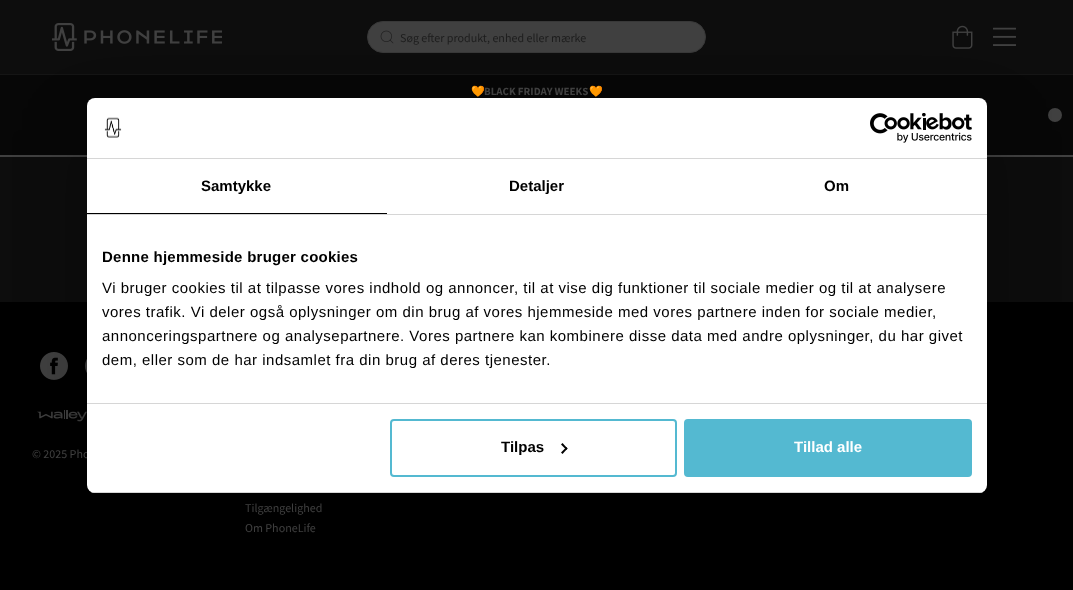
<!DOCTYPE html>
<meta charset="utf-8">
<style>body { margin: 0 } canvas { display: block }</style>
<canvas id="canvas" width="1073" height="590"></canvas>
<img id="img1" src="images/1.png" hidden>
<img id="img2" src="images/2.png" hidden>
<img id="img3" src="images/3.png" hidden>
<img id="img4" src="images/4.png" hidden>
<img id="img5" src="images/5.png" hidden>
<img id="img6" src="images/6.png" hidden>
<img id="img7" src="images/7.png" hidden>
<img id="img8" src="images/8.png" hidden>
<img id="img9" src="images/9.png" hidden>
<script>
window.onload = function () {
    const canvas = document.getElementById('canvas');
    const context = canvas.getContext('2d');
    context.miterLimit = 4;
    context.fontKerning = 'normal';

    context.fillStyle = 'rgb(64, 64, 64)';
    context.fillRect(0, 0, 1073, 590);
    context.fillStyle = 'rgb(13, 13, 13)';
    context.fillRect(0, 0, 1073, 74);
    context.fillStyle = 'rgb(21, 21, 21)';
    context.fillRect(0, 74, 1073, 1);
    context.drawImage(document.getElementById('img1'), 52, 23, 170, 28);
    context.fillStyle = 'rgb(64, 64, 64)';
    context.beginPath();
    context.roundRect(367.5, 21.5, 338, 31, 15.5);
    context.fill();
    context.strokeStyle = 'rgb(56, 56, 56)';
    context.stroke();
    context.drawImage(document.getElementById('img2'), 380, 30, 14, 14);
    context.drawImage(document.getElementById('img3'), 952, 25, 21, 24);
    context.drawImage(document.getElementById('img4'), 993, 27, 23, 19);
    context.fillStyle = 'rgb(7, 7, 7)';
    context.fillRect(0, 75, 1073, 80);
    context.fillStyle = 'rgb(64, 64, 64)';
    context.beginPath();
    context.arc(1055, 115, 7, 0, 2 * Math.PI);
    context.fill();
    context.fillStyle = 'rgb(0, 0, 0)';
    context.fillRect(0, 302, 1073, 288);
    context.fillStyle = 'rgb(13, 13, 13)';
    context.fillRect(0, 157, 1073, 145);
    context.drawImage(document.getElementById('img5'), 40, 352, 28, 28);
    context.drawImage(document.getElementById('img6'), 85, 359, 2, 14);
    context.drawImage(document.getElementById('img7'), 37, 410, 50, 12);
    context.fillStyle = 'rgba(0, 0, 0, 0.3)';
    context.filter = 'blur(34px)';
    context.beginPath();
    context.roundRect(87, 130, 900, 395, 8);
    context.fill();
    context.filter = 'none';
    context.font = '12px Source Sans Pro';
    context.fillStyle = 'rgb(29, 29, 29)';
    context.fillText('Søg efter produkt, enhed eller mærke', 400, 42);
    context.font = 'bold 11px Noto Color Emoji';
    context.fillStyle = 'rgb(64, 64, 64)';
    context.fillText('🧡', 471, 95);
    context.font = 'bold 11px Source Sans Pro';
    context.fillText('BLACK FRIDAY WEEKS', 484, 95);
    context.font = 'bold 11px Noto Color Emoji';
    context.fillText('🧡', 589, 95);
    context.font = '12px Source Sans Pro';
    context.fillText('© 2025 Pho', 32, 458);
    context.fillText('Tilgængelighed', 245, 512);
    context.fillText('Om PhoneLife', 245, 532);
    context.fillStyle = 'rgb(255, 255, 255)';
    context.beginPath();
    context.roundRect(87, 98, 900, 395, 8);
    context.fill();
    context.fillStyle = 'rgb(214, 214, 214)';
    context.fillRect(87, 158, 900, 1);
    context.drawImage(document.getElementById('img8'), 104, 117, 18, 21);
    context.drawImage(document.getElementById('img9'), 870, 113, 102, 30);
    context.fillRect(87, 214, 900, 1);
    context.fillStyle = 'rgb(0, 0, 0)';
    context.fillRect(87, 213, 300, 1);
    context.font = 'bold 15px Liberation Sans';
    context.fillText('Samtykke', 201, 191);
    context.fillText('Detaljer', 509, 191);
    context.fillText('Om', 824, 191);
    context.fillStyle = 'rgb(214, 214, 214)';
    context.fillRect(87, 403, 900, 1);
    context.letterSpacing = '0.25px';
    context.fillStyle = 'rgb(0, 0, 0)';
    context.fillText('Denne hjemmeside bruger cookies', 102, 262);
    context.letterSpacing = '0.5px';
    context.font = '15px Liberation Sans';
    context.fillText('Vi bruger cookies til at tilpasse vores indhold og annoncer, til at vise dig funktioner til sociale medier og til at analysere', 102, 293);
    context.fillText('vores trafik. Vi deler også oplysninger om din brug af vores hjemmeside med vores partnere inden for sociale medier,', 102, 317);
    context.fillText('annonceringspartnere og analysepartnere. Vores partnere kan kombinere disse data med andre oplysninger, du har givet', 102, 341);
    context.fillText('dem, eller som de har indsamlet fra din brug af deres tjenester.', 102, 365);
    context.save();
    context.beginPath();
    context.roundRect(87, 98, 900, 395, 8);
    context.clip();
    context.fillStyle = 'rgb(214, 214, 214)';
    context.fillRect(87, 492, 900, 1);
    context.restore();
    context.beginPath();
    context.roundRect(391, 420, 285, 56, 3);
    context.strokeStyle = 'rgb(84, 185, 209)';
    context.lineWidth = 2;
    context.stroke();
    context.letterSpacing = '0px';
    context.font = 'bold 15px Liberation Sans';
    context.fillText('Tilpas', 501, 452);
    context.beginPath();
    context.moveTo(562.5, 443);
    context.lineTo(567.5, 448.5);
    context.lineTo(566.5, 450);
    context.lineTo(561, 444.5);
    context.closePath();
    context.fill();
    context.beginPath();
    context.moveTo(566.5, 447);
    context.lineTo(567.5, 448.5);
    context.lineTo(562.5, 454);
    context.lineTo(561, 452.5);
    context.closePath();
    context.fill();
    context.fillStyle = 'rgb(84, 185, 209)';
    context.beginPath();
    context.roundRect(685, 420, 286, 56, 3);
    context.fill();
    context.stroke();
    context.fillStyle = 'rgb(255, 255, 255)';
    context.fillText('Tillad alle', 794, 452);
};
</script>
